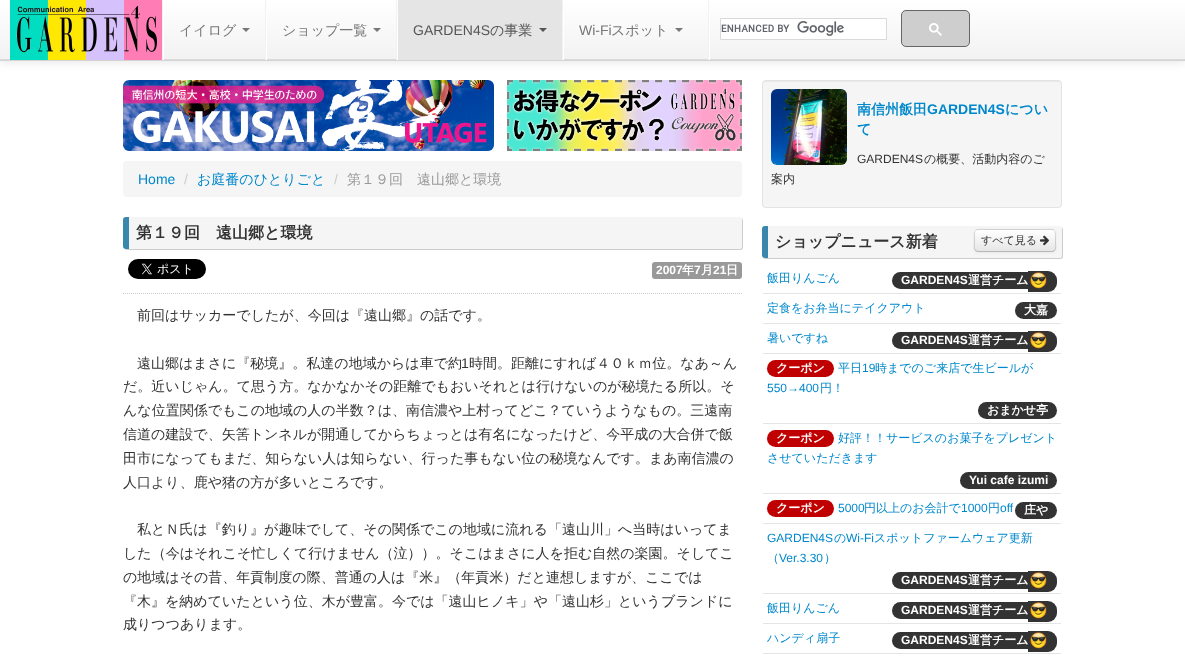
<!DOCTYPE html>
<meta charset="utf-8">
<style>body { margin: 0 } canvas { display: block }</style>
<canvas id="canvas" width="1185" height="667"></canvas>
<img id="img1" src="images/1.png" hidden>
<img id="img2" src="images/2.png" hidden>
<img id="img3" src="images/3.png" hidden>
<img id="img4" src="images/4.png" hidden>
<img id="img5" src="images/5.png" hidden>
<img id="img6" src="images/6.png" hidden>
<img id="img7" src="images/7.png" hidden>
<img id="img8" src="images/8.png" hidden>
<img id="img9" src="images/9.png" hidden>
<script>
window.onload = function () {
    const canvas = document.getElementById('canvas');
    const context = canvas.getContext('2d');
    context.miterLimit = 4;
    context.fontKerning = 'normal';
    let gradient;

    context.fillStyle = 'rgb(255, 255, 255)';
    context.fillRect(0, 0, 1185, 667);
    context.fillStyle = 'rgba(0, 0, 0, 0.1)';
    context.filter = 'blur(5px)';
    context.beginPath();
    context.rect(0, 1, 1185, 61);
    context.fill();
    context.filter = 'none';
    gradient = context.createLinearGradient(593, 0, 593, 60);
    gradient.addColorStop(0, 'rgb(255, 255, 255)');
    gradient.addColorStop(1, 'rgb(242, 242, 242)');
    context.fillStyle = gradient;
    context.fillRect(0, 0, 1185, 59);
    context.fillStyle = 'rgb(218, 218, 218)';
    context.fillRect(0, 59, 1185, 1);
    context.fillStyle = 'rgb(212, 212, 212)';
    context.fillRect(0, 60, 1185, 1);
    context.drawImage(document.getElementById('img1'), 10, 0, 152, 60);
    context.fillStyle = 'rgb(255, 255, 255)';
    context.fillRect(163, 12, 1, 48);
    context.fillStyle = 'rgb(242, 242, 242)';
    context.fillRect(162, 0, 1, 60);
    context.fillStyle = 'rgb(119, 119, 119)';
    context.beginPath();
    context.moveTo(242, 28);
    context.lineTo(250, 28);
    context.lineTo(246, 32);
    context.closePath();
    context.fill();
    context.fillStyle = 'rgb(255, 255, 255)';
    context.fillRect(266, 12, 1, 48);
    context.fillStyle = 'rgb(242, 242, 242)';
    context.fillRect(265, 0, 1, 60);
    context.fillStyle = 'rgb(119, 119, 119)';
    context.beginPath();
    context.moveTo(373, 28);
    context.lineTo(381, 28);
    context.lineTo(377, 32);
    context.closePath();
    context.fill();
    context.fillStyle = 'rgb(255, 255, 255)';
    context.fillRect(397, 12, 1, 48);
    context.fillStyle = 'rgb(242, 242, 242)';
    context.fillRect(396, 0, 1, 60);
    context.fillStyle = 'rgb(229, 229, 229)';
    context.fillRect(398, 0, 164, 60);
    context.fillStyle = 'rgb(85, 85, 85)';
    context.beginPath();
    context.moveTo(539, 28);
    context.lineTo(547, 28);
    context.lineTo(543, 32);
    context.closePath();
    context.fill();
    context.fillStyle = 'rgb(255, 255, 255)';
    context.fillRect(563, 12, 1, 48);
    context.fillStyle = 'rgb(242, 242, 242)';
    context.fillRect(562, 0, 1, 60);
    context.fillStyle = 'rgb(119, 119, 119)';
    context.beginPath();
    context.moveTo(675, 28);
    context.lineTo(683, 28);
    context.lineTo(679, 32);
    context.closePath();
    context.fill();
    context.fillStyle = 'rgb(255, 255, 255)';
    context.fillRect(709, 12, 1, 48);
    context.fillStyle = 'rgb(242, 242, 242)';
    context.fillRect(708, 0, 1, 60);
    context.fillStyle = 'rgb(255, 255, 255)';
    context.beginPath();
    context.rect(720.5, 18.5, 166, 21);
    context.fill();
    context.strokeStyle = 'rgb(217, 217, 217)';
    context.stroke();
    context.drawImage(document.getElementById('img2'), 721, 21, 123, 15);
    context.fillStyle = 'rgb(206, 206, 206)';
    context.beginPath();
    context.roundRect(901.5, 10.5, 68, 36, 4.5);
    context.fill();
    context.strokeStyle = 'rgb(102, 102, 102)';
    context.stroke();
    context.drawImage(document.getElementById('img3'), 929, 23, 13, 13);
    context.drawImage(document.getElementById('img4'), 123, 80, 371, 71);
    context.drawImage(document.getElementById('img5'), 507, 80, 235, 71);
    context.fillStyle = 'rgb(245, 245, 245)';
    context.beginPath();
    context.roundRect(123, 161, 619, 36, 4);
    context.fill();
    context.beginPath();
    context.moveTo(123, 293.5);
    context.lineTo(742, 293.5);
    context.strokeStyle = 'rgb(204, 204, 204)';
    context.setLineDash([1, 1]);
    context.stroke();
    context.fillStyle = 'rgba(0, 0, 0, 0.2)';
    context.filter = 'blur(0.5px)';
    context.beginPath();
    context.roundRect(124, 218, 619, 32, 3);
    context.fill();
    context.filter = 'none';
    context.fillStyle = 'rgb(245, 245, 245)';
    context.beginPath();
    context.roundRect(123, 217, 619, 32, 3);
    context.fill();
    context.beginPath();
    context.moveTo(736, 249);
    context.bezierCurveTo(742.5, 249, 742, 248.5, 742, 241.5);
    context.lineTo(742, 224.5);
    context.bezierCurveTo(742, 217.5, 742.5, 217, 736, 217);
    context.closePath();
    context.fill();
    context.fillStyle = 'rgb(58, 135, 173)';
    context.beginPath();
    context.moveTo(126, 217);
    context.bezierCurveTo(124, 217, 123, 218, 123, 220);
    context.lineTo(123, 246);
    context.bezierCurveTo(123, 248, 124, 249, 126, 249);
    context.lineTo(129, 249);
    context.lineTo(129, 217);
    context.closePath();
    context.fill();
    context.drawImage(document.getElementById('img6'), 128, 259, 78, 20);
    context.fillStyle = 'rgb(153, 153, 153)';
    context.beginPath();
    context.roundRect(652, 262, 90, 17, 3);
    context.fill();
    context.fillStyle = 'rgb(245, 245, 245)';
    context.beginPath();
    context.roundRect(762, 80, 300, 128, 4);
    context.fill();
    context.fillStyle = 'rgb(233, 233, 233)';
    context.beginPath();
    context.moveTo(766, 82);
    context.lineTo(1058, 82);
    context.bezierCurveTo(1060, 82, 1061, 83, 1061, 85);
    context.lineTo(1060, 82);
    context.lineTo(1059, 81);
    context.lineTo(766, 81);
    context.bezierCurveTo(764, 81, 763, 83, 763, 85);
    context.bezierCurveTo(763, 83, 764, 82, 766, 82);
    context.closePath();
    context.fill();
    context.beginPath();
    context.roundRect(762.5, 80.5, 299, 127, 3.5);
    context.strokeStyle = 'rgb(227, 227, 227)';
    context.setLineDash([]);
    context.stroke();
    context.drawImage(document.getElementById('img7'), 771, 89, 76, 76);
    context.fillStyle = 'rgba(0, 0, 0, 0.2)';
    context.filter = 'blur(0.5px)';
    context.beginPath();
    context.roundRect(763, 227, 300, 32, 3);
    context.fill();
    context.filter = 'none';
    context.fillStyle = 'rgb(245, 245, 245)';
    context.beginPath();
    context.roundRect(762, 226, 300, 32, 3);
    context.fill();
    context.beginPath();
    context.moveTo(1056, 258);
    context.bezierCurveTo(1062.5, 258, 1062, 257.5, 1062, 250.5);
    context.lineTo(1062, 233.5);
    context.bezierCurveTo(1062, 226.5, 1062.5, 226, 1056, 226);
    context.closePath();
    context.fill();
    context.fillStyle = 'rgb(58, 135, 173)';
    context.beginPath();
    context.moveTo(765, 226);
    context.bezierCurveTo(763, 226, 762, 227, 762, 229);
    context.lineTo(762, 255);
    context.bezierCurveTo(762, 257, 763, 258, 765, 258);
    context.lineTo(768, 258);
    context.lineTo(768, 226);
    context.closePath();
    context.fill();
    context.fillStyle = 'rgba(0, 0, 0, 0.05)';
    context.filter = 'blur(1px)';
    context.beginPath();
    context.roundRect(974, 230, 82, 23, 4);
    context.fill();
    context.filter = 'none';
    context.fillStyle = 'rgb(245, 245, 245)';
    context.beginPath();
    context.roundRect(974, 229, 82, 23, 4);
    context.fill();
    context.save();
    context.beginPath();
    context.roundRect(974, 229, 82, 23, 4);
    context.clip();
    gradient = context.createLinearGradient(1015, 230, 1015, 251);
    gradient.addColorStop(0, 'rgb(255, 255, 255)');
    gradient.addColorStop(1, 'rgb(230, 230, 230)');
    context.fillStyle = gradient;
    context.fillRect(974, 230, 82, 21);
    context.restore();
    context.beginPath();
    context.moveTo(1054.5, 250.5);
    context.lineTo(1052.5, 251.5);
    context.lineTo(977.5, 251.5);
    context.lineTo(975.5, 250.5);
    context.strokeStyle = 'rgba(0, 0, 0, 0.25)';
    context.stroke();
    context.beginPath();
    context.moveTo(975.5, 250.5);
    context.bezierCurveTo(973.5, 248.5, 974.5, 245, 974.5, 243);
    context.bezierCurveTo(974.5, 227, 973, 229.5, 990.5, 229.5);
    context.lineTo(1039.5, 229.5);
    context.bezierCurveTo(1057, 229.5, 1055.5, 227, 1055.5, 243);
    context.bezierCurveTo(1055.5, 245, 1056.5, 248.5, 1054.5, 250.5);
    context.strokeStyle = 'rgba(0, 0, 0, 0.15)';
    context.stroke();
    context.drawImage(document.getElementById('img8'), 1040, 235, 9, 11);
    context.fillStyle = 'rgb(51, 51, 51)';
    context.beginPath();
    context.roundRect(892, 272, 136, 17, [8.5, 0, 0, 8.5]);
    context.fill();
    context.beginPath();
    context.roundRect(1028, 271, 29, 21, [0, 9, 9, 0]);
    context.fill();
    context.drawImage(document.getElementById('img9'), 1030, 272, 17, 17);
    context.fillStyle = 'rgb(229, 229, 229)';
    context.fillRect(763, 293, 298, 1);
    context.fillStyle = 'rgb(51, 51, 51)';
    context.beginPath();
    context.roundRect(1015, 302, 42, 17, 8.5);
    context.fill();
    context.fillStyle = 'rgb(229, 229, 229)';
    context.fillRect(763, 323, 298, 1);
    context.fillStyle = 'rgb(51, 51, 51)';
    context.beginPath();
    context.roundRect(892, 332, 136, 17, [8.5, 0, 0, 8.5]);
    context.fill();
    context.beginPath();
    context.roundRect(1028, 331, 29, 21, [0, 9, 9, 0]);
    context.fill();
    context.drawImage(document.getElementById('img9'), 1030, 332, 17, 17);
    context.fillStyle = 'rgb(229, 229, 229)';
    context.fillRect(763, 353, 298, 1);
    context.fillStyle = 'rgb(192, 0, 0)';
    context.beginPath();
    context.roundRect(767, 360, 67, 17, 8.5);
    context.fill();
    context.fillStyle = 'rgb(51, 51, 51)';
    context.beginPath();
    context.roundRect(978, 402, 79, 17, 8.5);
    context.fill();
    context.fillStyle = 'rgb(229, 229, 229)';
    context.fillRect(763, 423, 298, 1);
    context.fillStyle = 'rgb(192, 0, 0)';
    context.beginPath();
    context.roundRect(767, 430, 67, 17, 8.5);
    context.fill();
    context.fillStyle = 'rgb(51, 51, 51)';
    context.beginPath();
    context.roundRect(960, 472, 97, 17, 8.5);
    context.fill();
    context.fillStyle = 'rgb(229, 229, 229)';
    context.fillRect(763, 493, 298, 1);
    context.fillStyle = 'rgb(192, 0, 0)';
    context.beginPath();
    context.roundRect(767, 500, 67, 17, 8.5);
    context.fill();
    context.fillStyle = 'rgb(51, 51, 51)';
    context.beginPath();
    context.roundRect(1015, 502, 42, 17, 8.5);
    context.fill();
    context.fillStyle = 'rgb(229, 229, 229)';
    context.fillRect(763, 523, 298, 1);
    context.fillStyle = 'rgb(51, 51, 51)';
    context.beginPath();
    context.roundRect(892, 572, 136, 17, [8.5, 0, 0, 8.5]);
    context.fill();
    context.beginPath();
    context.roundRect(1028, 571, 29, 21, [0, 9, 9, 0]);
    context.fill();
    context.drawImage(document.getElementById('img9'), 1030, 572, 17, 17);
    context.fillStyle = 'rgb(229, 229, 229)';
    context.fillRect(763, 593, 298, 1);
    context.fillStyle = 'rgb(51, 51, 51)';
    context.beginPath();
    context.roundRect(892, 602, 136, 17, [8.5, 0, 0, 8.5]);
    context.fill();
    context.beginPath();
    context.roundRect(1028, 601, 29, 21, [0, 9, 9, 0]);
    context.fill();
    context.drawImage(document.getElementById('img9'), 1030, 602, 17, 17);
    context.fillStyle = 'rgb(229, 229, 229)';
    context.fillRect(763, 623, 298, 1);
    context.fillStyle = 'rgb(51, 51, 51)';
    context.beginPath();
    context.roundRect(892, 632, 136, 17, [8.5, 0, 0, 8.5]);
    context.fill();
    context.beginPath();
    context.roundRect(1028, 631, 29, 21, [0, 9, 9, 0]);
    context.fill();
    context.drawImage(document.getElementById('img9'), 1030, 632, 17, 17);
    context.fillStyle = 'rgb(229, 229, 229)';
    context.fillRect(763, 653, 298, 1);
    context.font = '500 14px WenQuanYi Zen Hei';
    context.fillStyle = 'rgb(119, 119, 119)';
    context.fillText('イイログ', 179, 35);
    context.fillText('ショップ一覧', 282, 35);
    context.font = '14px Liberation Sans';
    context.fillStyle = 'rgb(85, 85, 85)';
    context.fillText('GARDEN4S', 413, 35);
    context.font = '500 14px WenQuanYi Zen Hei';
    context.fillText('の事業', 490, 35);
    context.font = '14px Liberation Sans';
    context.fillStyle = 'rgb(119, 119, 119)';
    context.fillText('Wi-Fi', 579, 35);
    context.font = '500 14px WenQuanYi Zen Hei';
    context.fillText('スポット', 611, 35);
    context.font = '14px Liberation Sans';
    context.fillStyle = 'rgb(0, 136, 204)';
    context.fillText('Home', 138, 184);
    context.fillStyle = 'rgb(204, 204, 204)';
    context.fillText('/', 184, 184);
    context.font = '500 14px WenQuanYi Zen Hei';
    context.fillStyle = 'rgb(0, 136, 204)';
    context.fillText('お庭番のひとりごと', 197, 184);
    context.font = '14px Liberation Sans';
    context.fillStyle = 'rgb(204, 204, 204)';
    context.fillText('/', 334, 184);
    context.font = '500 14px WenQuanYi Zen Hei';
    context.fillStyle = 'rgb(153, 153, 153)';
    context.fillText('第１９回　遠山郷と環境', 347, 184);
    context.font = 'bold 16px WenQuanYi Zen Hei';
    context.fillStyle = 'rgb(51, 51, 51)';
    context.fillText('第１９回　遠山郷と環境', 136, 238);
    context.font = 'bold 12px Liberation Sans';
    context.fillStyle = 'rgb(255, 255, 255)';
    context.fillText('2007', 656, 274);
    context.font = 'bold 12px WenQuanYi Zen Hei';
    context.fillText('年', 682, 274);
    context.font = 'bold 12px Liberation Sans';
    context.fillText('7', 694, 274);
    context.font = 'bold 12px WenQuanYi Zen Hei';
    context.fillText('月', 701, 274);
    context.font = 'bold 12px Liberation Sans';
    context.fillText('21', 713, 274);
    context.font = 'bold 12px WenQuanYi Zen Hei';
    context.fillText('日', 726, 274);
    context.font = '500 14px WenQuanYi Zen Hei';
    context.fillStyle = 'rgb(51, 51, 51)';
    context.fillText('前回はサッカーでしたが、今回は『遠山郷』の話です。', 137, 320);
    context.fillText('遠山郷はまさに『秘境』。私達の地域からは車で約', 137, 368);
    context.font = '14px Liberation Sans';
    context.fillText('1', 461, 368);
    context.font = '500 14px WenQuanYi Zen Hei';
    context.fillText('時間。距離にすれば４０ｋｍ位。なあ～ん', 469, 368);
    context.fillText('だ。近いじゃん。て思う方。なかなかその距離でもおいそれとは行けないのが秘境たる所以。そ', 123, 391);
    context.fillText('んな位置関係でもこの地域の人の半数？は、南信濃や上村ってどこ？ていうようなもの。三遠南', 123, 415);
    context.fillText('信道の建設で、矢筈トンネルが開通してからちょっとは有名になったけど、今平成の大合併で飯', 123, 439);
    context.fillText('田市になってもまだ、知らない人は知らない、行った事もない位の秘境なんです。まあ南信濃の', 123, 463);
    context.fillText('人口より、鹿や猪の方が多いところです。', 123, 487);
    context.fillText('私とＮ氏は『釣り』が趣味でして、その関係でこの地域に流れる「遠山川」へ当時はいってま', 137, 534);
    context.fillText('した（今はそれこそ忙しくて行けません（泣））。そこはまさに人を拒む自然の楽園。そしてこ', 123, 558);
    context.fillText('の地域はその昔、年貢制度の際、普通の人は『米』（年貢米）だと連想しますが、ここでは', 123, 582);
    context.fillText('『木』を納めていたという位、木が豊富。今では「遠山ヒノキ」や「遠山杉」というブランドに', 123, 606);
    context.fillText('成りつつあります。', 123, 629);
    context.font = 'bold 14px WenQuanYi Zen Hei';
    context.fillStyle = 'rgb(0, 136, 204)';
    context.fillText('南信州飯田', 857, 114);
    context.font = 'bold 14px Liberation Sans';
    context.fillText('GARDEN4S', 927, 114);
    context.font = 'bold 14px WenQuanYi Zen Hei';
    context.fillText('につい', 1005, 114);
    context.fillText('て', 857, 134);
    context.font = '12px Liberation Sans';
    context.fillStyle = 'rgb(51, 51, 51)';
    context.fillText('GARDEN4S', 857, 163);
    context.font = '500 12px WenQuanYi Zen Hei';
    context.fillText('の概要、活動内容のご', 924, 163);
    context.fillText('案内', 771, 183);
    context.font = 'bold 16px WenQuanYi Zen Hei';
    context.fillText('ショップニュース新着', 775, 247);
    context.font = '500 11px WenQuanYi Zen Hei';
    context.fillText('すべて見る', 981, 244);
    context.font = '500 12px WenQuanYi Zen Hei';
    context.fillStyle = 'rgb(0, 136, 204)';
    context.fillText('飯田りんごん', 767, 282);
    context.font = 'bold 12px Liberation Sans';
    context.fillStyle = 'rgb(255, 255, 255)';
    context.fillText('GARDEN4S', 901, 284);
    context.font = 'bold 12px WenQuanYi Zen Hei';
    context.fillText('運営チーム', 968, 284);
    context.font = '500 12px WenQuanYi Zen Hei';
    context.fillStyle = 'rgb(0, 136, 204)';
    context.fillText('定食をお弁当にテイクアウト', 767, 312);
    context.font = 'bold 12px WenQuanYi Zen Hei';
    context.fillStyle = 'rgb(255, 255, 255)';
    context.fillText('大嘉', 1024, 314);
    context.font = '500 12px WenQuanYi Zen Hei';
    context.fillStyle = 'rgb(0, 136, 204)';
    context.fillText('暑いですね', 767, 342);
    context.font = 'bold 12px Liberation Sans';
    context.fillStyle = 'rgb(255, 255, 255)';
    context.fillText('GARDEN4S', 901, 344);
    context.font = 'bold 12px WenQuanYi Zen Hei';
    context.fillText('運営チーム', 968, 344);
    context.fillText('クーポン', 776, 372);
    context.font = '500 12px WenQuanYi Zen Hei';
    context.fillStyle = 'rgb(0, 136, 204)';
    context.fillText('平日', 838, 372);
    context.font = '12px Liberation Sans';
    context.fillText('19', 862, 372);
    context.font = '500 12px WenQuanYi Zen Hei';
    context.fillText('時までのご来店で生ビールが', 875, 372);
    context.font = '12px Liberation Sans';
    context.fillText('550→400', 767, 392);
    context.font = '500 12px WenQuanYi Zen Hei';
    context.fillText('円！', 820, 392);
    context.font = 'bold 12px WenQuanYi Zen Hei';
    context.fillStyle = 'rgb(255, 255, 255)';
    context.fillText('おまかせ亭', 987, 414);
    context.fillText('クーポン', 776, 442);
    context.font = '500 12px WenQuanYi Zen Hei';
    context.fillStyle = 'rgb(0, 136, 204)';
    context.fillText('好評！！サービスのお菓子をプレゼント', 838, 442);
    context.fillText('させていただきます', 767, 462);
    context.font = 'bold 12px Liberation Sans';
    context.fillStyle = 'rgb(255, 255, 255)';
    context.fillText('Yui cafe izumi', 969, 484);
    context.font = 'bold 12px WenQuanYi Zen Hei';
    context.fillText('クーポン', 776, 512);
    context.font = '12px Liberation Sans';
    context.fillStyle = 'rgb(0, 136, 204)';
    context.fillText('5000', 838, 512);
    context.font = '500 12px WenQuanYi Zen Hei';
    context.fillText('円以上のお会計で', 864, 512);
    context.font = '12px Liberation Sans';
    context.fillText('1000', 961, 512);
    context.font = '500 12px WenQuanYi Zen Hei';
    context.fillText('円', 988, 512);
    context.font = '12px Liberation Sans';
    context.fillText('off', 1000, 512);
    context.font = 'bold 12px WenQuanYi Zen Hei';
    context.fillStyle = 'rgb(255, 255, 255)';
    context.fillText('庄や', 1024, 514);
    context.font = '12px Liberation Sans';
    context.fillStyle = 'rgb(0, 136, 204)';
    context.fillText('GARDEN4S', 767, 542);
    context.font = '500 12px WenQuanYi Zen Hei';
    context.fillText('の', 834, 542);
    context.font = '12px Liberation Sans';
    context.fillText('Wi-Fi', 846, 542);
    context.font = '500 12px WenQuanYi Zen Hei';
    context.fillText('スポットファームウェア更新', 874, 542);
    context.fillText('（', 767, 562);
    context.font = '12px Liberation Sans';
    context.fillText('Ver.3.30', 779, 562);
    context.font = '500 12px WenQuanYi Zen Hei';
    context.fillText('）', 824, 562);
    context.font = 'bold 12px Liberation Sans';
    context.fillStyle = 'rgb(255, 255, 255)';
    context.fillText('GARDEN4S', 901, 584);
    context.font = 'bold 12px WenQuanYi Zen Hei';
    context.fillText('運営チーム', 968, 584);
    context.font = '500 12px WenQuanYi Zen Hei';
    context.fillStyle = 'rgb(0, 136, 204)';
    context.fillText('飯田りんごん', 767, 612);
    context.font = 'bold 12px Liberation Sans';
    context.fillStyle = 'rgb(255, 255, 255)';
    context.fillText('GARDEN4S', 901, 614);
    context.font = 'bold 12px WenQuanYi Zen Hei';
    context.fillText('運営チーム', 968, 614);
    context.font = '500 12px WenQuanYi Zen Hei';
    context.fillStyle = 'rgb(0, 136, 204)';
    context.fillText('ハンディ扇子', 767, 642);
    context.font = 'bold 12px Liberation Sans';
    context.fillStyle = 'rgb(255, 255, 255)';
    context.fillText('GARDEN4S', 901, 644);
    context.font = 'bold 12px WenQuanYi Zen Hei';
    context.fillText('運営チーム', 968, 644);
};
</script>
